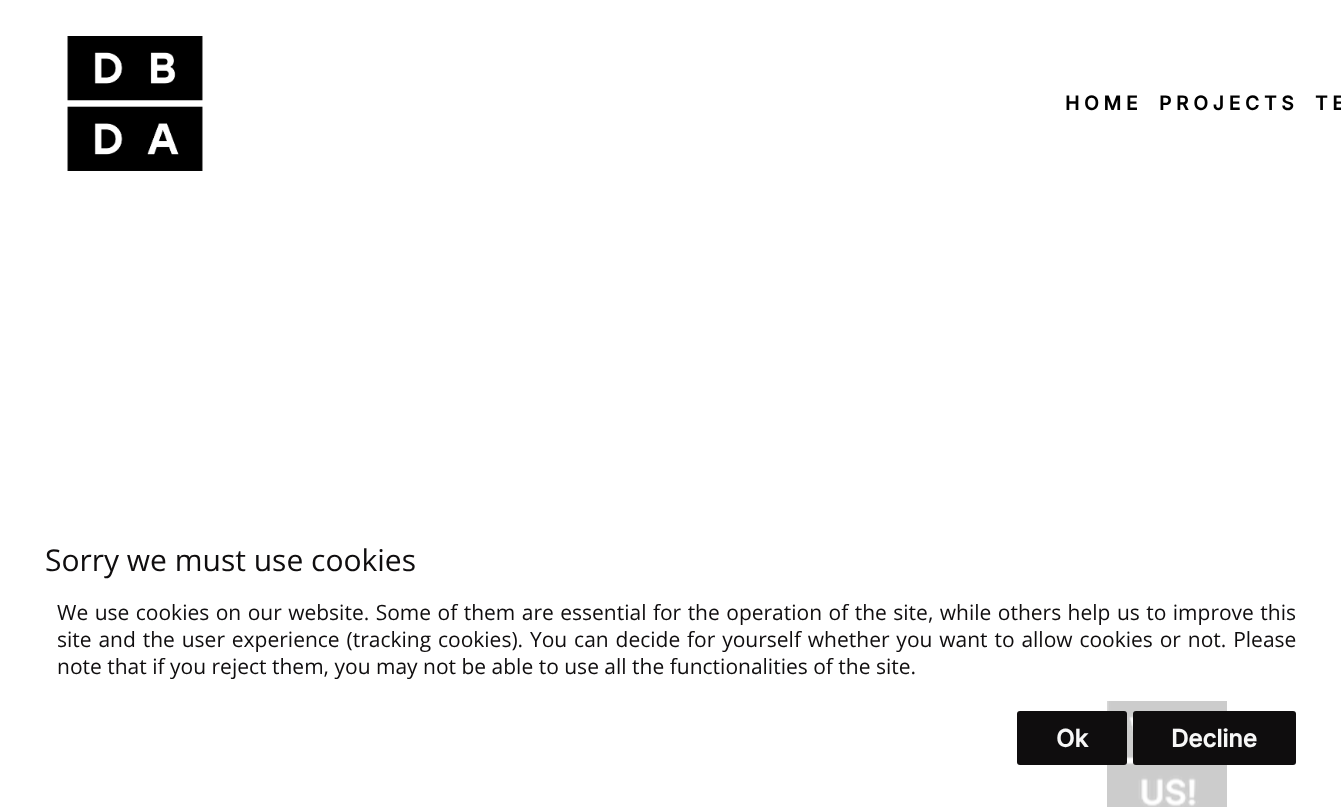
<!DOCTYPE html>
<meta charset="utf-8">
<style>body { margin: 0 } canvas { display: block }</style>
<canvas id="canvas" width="1341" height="807"></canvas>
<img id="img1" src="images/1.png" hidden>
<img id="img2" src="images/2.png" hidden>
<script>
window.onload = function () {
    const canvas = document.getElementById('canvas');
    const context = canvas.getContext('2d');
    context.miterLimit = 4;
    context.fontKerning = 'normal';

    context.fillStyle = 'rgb(255, 255, 255)';
    context.fillRect(0, 0, 1341, 807);
    context.drawImage(document.getElementById('img1'), 67, 36, 136, 135);
    context.drawImage(document.getElementById('img2'), 1107, 701, 120, 106);
    context.fillStyle = 'rgb(15, 13, 14)';
    context.beginPath();
    context.roundRect(1017, 711, 110, 54, 3);
    context.fill();
    context.beginPath();
    context.roundRect(1133, 711, 163, 54, 3);
    context.fill();
    context.letterSpacing = '4.75px';
    context.font = 'bold 19.25px Inter';
    context.fillStyle = 'rgb(0, 0, 0)';
    context.fillText('HOME', 1065, 110);
    context.fillText('PROJECTS', 1159, 110);
    context.fillText('TE', 1315, 110);
    context.letterSpacing = '0px';
    context.font = '30px Open Sans';
    context.fillStyle = 'rgb(15, 13, 14)';
    context.fillText('Sorry we must use cookies', 45, 571);
    context.wordSpacing = '1px';
    context.font = '21px Open Sans';
    context.fillText('We use cookies on our website. Some of them are essential for the operation of the site, while others help us to improve this', 57, 620);
    context.wordSpacing = '1.4px';
    context.fillText('site and the user experience (tracking cookies). You can decide for yourself whether you want to allow cookies or not. Please', 57, 647);
    context.wordSpacing = '0px';
    context.fillText('note that if you reject them, you may not be able to use all the functionalities of the site.', 57, 674);
    context.font = 'bold 24px Inter';
    context.fillStyle = 'rgb(247, 247, 247)';
    context.fillText('Ok', 1056, 747);
    context.fillText('Decline', 1171, 747);
};
</script>
